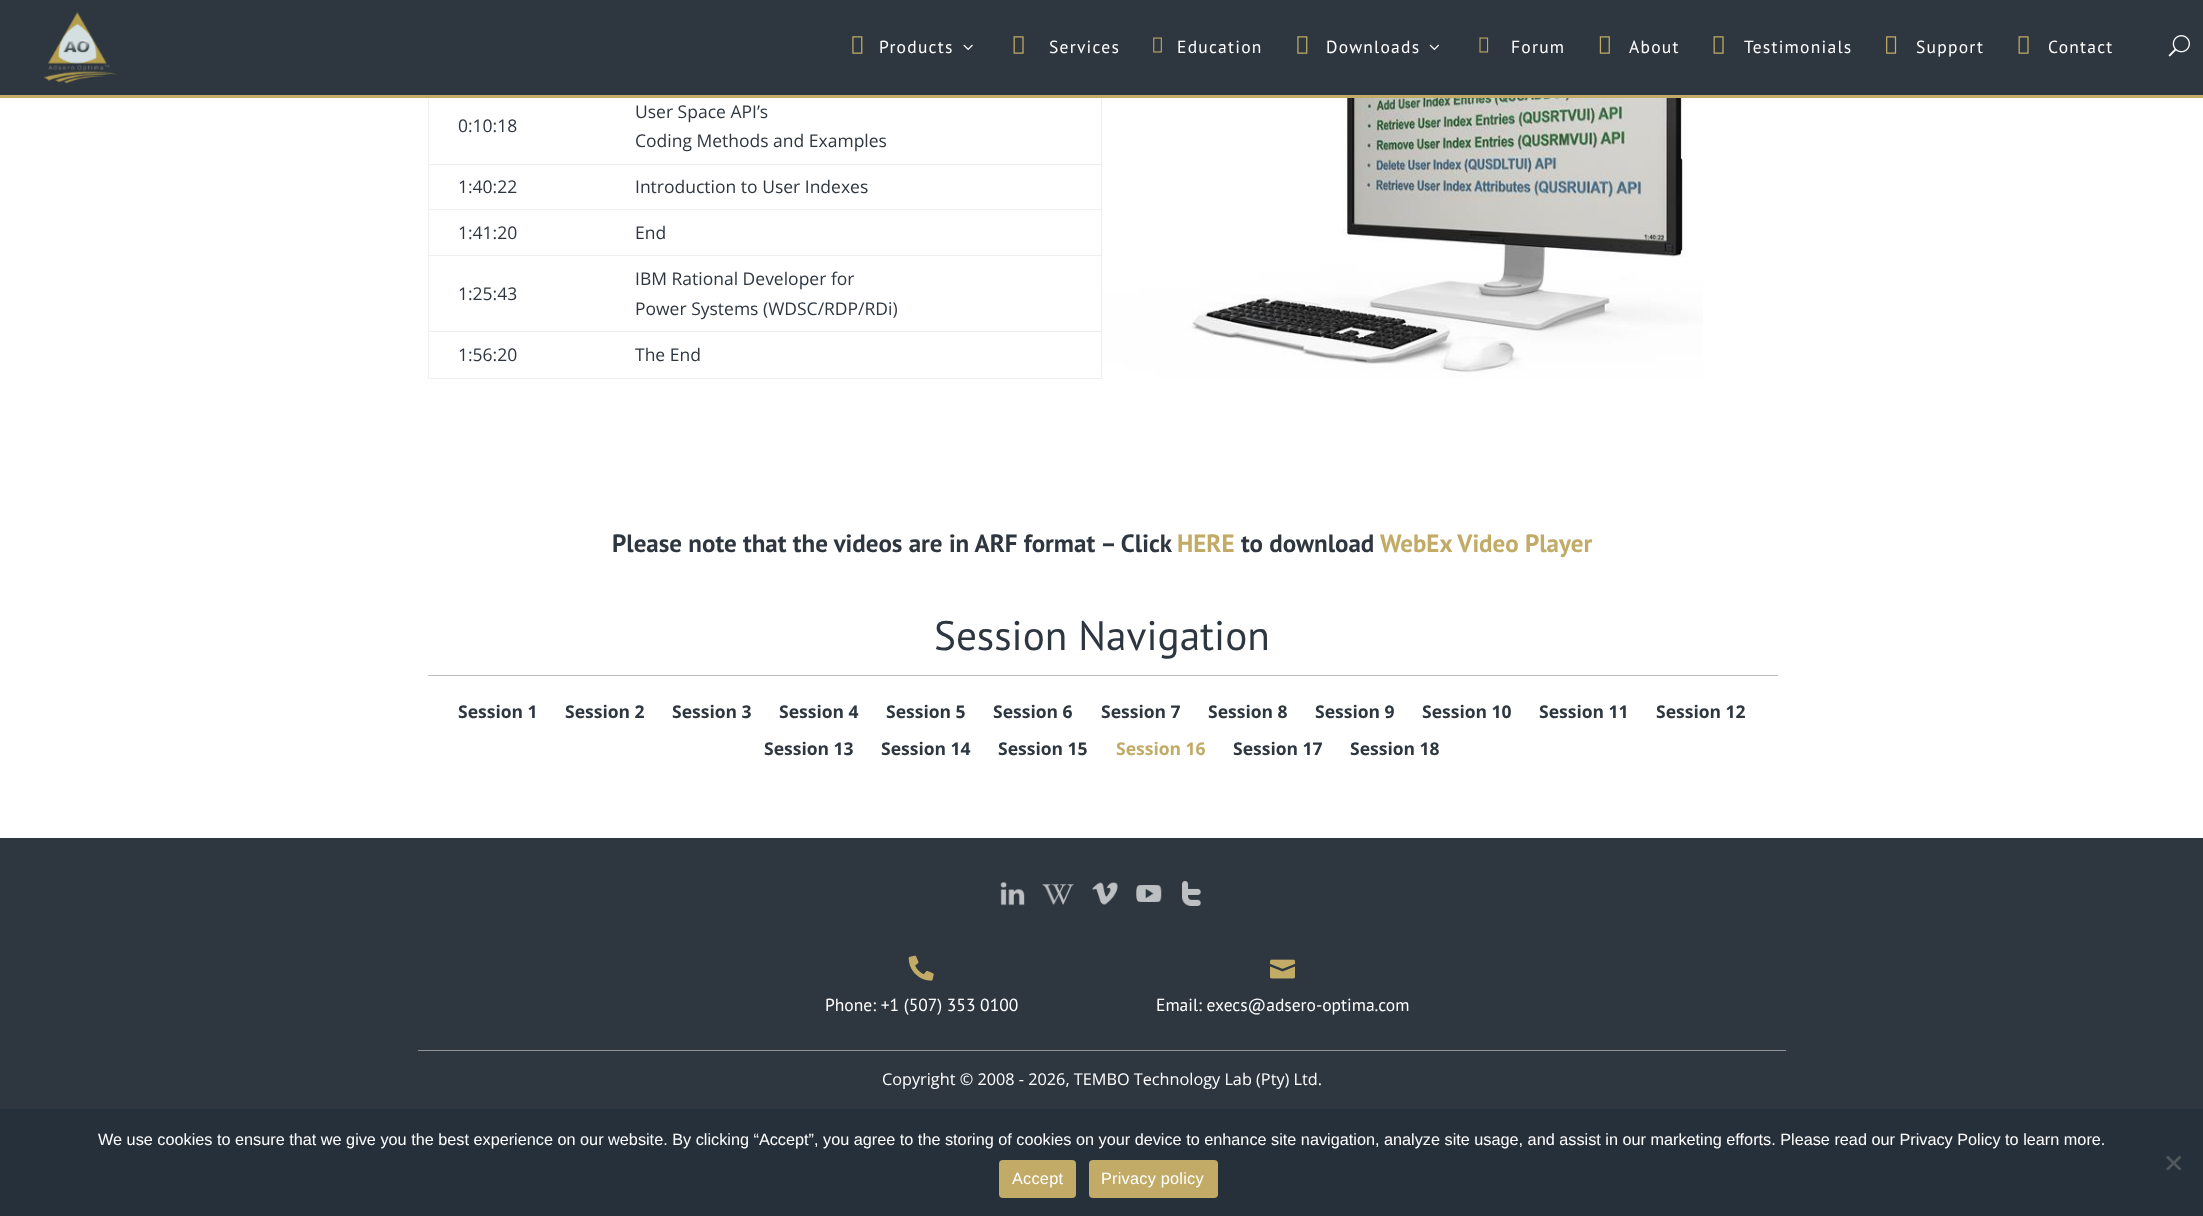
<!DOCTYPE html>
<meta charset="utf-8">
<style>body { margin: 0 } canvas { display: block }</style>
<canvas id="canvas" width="2203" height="1216"></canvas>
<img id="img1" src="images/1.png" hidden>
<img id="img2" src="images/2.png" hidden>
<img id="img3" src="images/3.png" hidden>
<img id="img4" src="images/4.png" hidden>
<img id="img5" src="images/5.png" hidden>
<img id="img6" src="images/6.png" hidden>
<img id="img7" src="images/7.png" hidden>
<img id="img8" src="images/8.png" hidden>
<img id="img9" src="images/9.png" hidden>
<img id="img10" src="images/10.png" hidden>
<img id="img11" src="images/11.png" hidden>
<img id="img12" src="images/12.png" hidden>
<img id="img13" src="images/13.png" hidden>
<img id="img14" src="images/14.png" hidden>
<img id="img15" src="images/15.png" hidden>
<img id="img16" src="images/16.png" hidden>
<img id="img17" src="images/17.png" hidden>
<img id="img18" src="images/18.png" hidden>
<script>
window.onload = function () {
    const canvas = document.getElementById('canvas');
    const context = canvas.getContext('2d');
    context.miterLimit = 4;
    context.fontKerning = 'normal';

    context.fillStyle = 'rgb(255, 255, 255)';
    context.fillRect(0, 0, 2203, 1216);
    context.fillStyle = 'rgb(193, 171, 102)';
    context.beginPath();
    context.moveTo(0, 95);
    context.lineTo(0, 98);
    context.lineTo(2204, 98);
    context.lineTo(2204, 3);
    context.lineTo(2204, 95);
    context.closePath();
    context.fill();
    context.fillStyle = 'rgb(46, 54, 64)';
    context.fillRect(0, 0, 2203, 95);
    context.drawImage(document.getElementById('img1'), 44, 12, 73, 72);
    context.drawImage(document.getElementById('img2'), 852, 36, 11, 18);
    context.drawImage(document.getElementById('img3'), 963, 44, 10, 6);
    context.drawImage(document.getElementById('img4'), 1013, 36, 11, 18);
    context.drawImage(document.getElementById('img5'), 1153, 37, 9, 16);
    context.drawImage(document.getElementById('img2'), 1297, 36, 11, 18);
    context.drawImage(document.getElementById('img6'), 1429, 44, 10, 6);
    context.drawImage(document.getElementById('img7'), 1479, 37, 10, 16);
    context.drawImage(document.getElementById('img8'), 1599, 36, 11, 18);
    context.drawImage(document.getElementById('img4'), 1713, 36, 11, 18);
    context.drawImage(document.getElementById('img9'), 1886, 36, 11, 18);
    context.drawImage(document.getElementById('img4'), 2018, 36, 11, 18);
    context.drawImage(document.getElementById('img10'), 2168, 35, 22, 22);
    context.fillStyle = 'rgb(238, 238, 238)';
    context.fillRect(1101, 98, 1, 281);
    context.fillRect(428, 378, 675, 1);
    context.fillRect(428, 98, 1, 281);
    context.fillRect(428, 164, 675, 1);
    context.fillRect(428, 209, 675, 1);
    context.fillRect(428, 255, 675, 1);
    context.fillRect(428, 331, 675, 1);
    context.drawImage(document.getElementById('img11'), 1102, 98, 601, 281);
    context.fillStyle = 'rgb(188, 191, 193)';
    context.fillRect(428, 675, 1350, 1);
    context.fillStyle = 'rgb(46, 54, 64)';
    context.fillRect(0, 838, 2203, 271);
    context.drawImage(document.getElementById('img12'), 1000, 881, 25, 25);
    context.drawImage(document.getElementById('img13'), 1042, 884, 32, 21);
    context.drawImage(document.getElementById('img14'), 1092, 882, 26, 23);
    context.drawImage(document.getElementById('img15'), 1136, 885, 26, 17);
    context.drawImage(document.getElementById('img16'), 1182, 881, 19, 25);
    context.fillStyle = 'rgb(146, 148, 151)';
    context.fillRect(418, 1050, 1368, 1);
    context.drawImage(document.getElementById('img17'), 908, 955, 26, 26);
    context.drawImage(document.getElementById('img18'), 1270, 959, 25, 20);
    context.fillStyle = 'rgb(38, 48, 58)';
    context.fillRect(0, 1109, 2203, 107);
    context.fillStyle = 'rgb(83, 88, 93)';
    context.beginPath();
    context.moveTo(2179.5, 1155.5);
    context.lineTo(2181.5, 1157.5);
    context.lineTo(2168, 1170.5);
    context.lineTo(2166, 1169);
    context.closePath();
    context.fill();
    context.beginPath();
    context.moveTo(2166, 1157.5);
    context.lineTo(2168, 1155.5);
    context.lineTo(2181.5, 1169);
    context.lineTo(2179.5, 1170.5);
    context.closePath();
    context.fill();
    context.fillStyle = 'rgb(193, 171, 102)';
    context.beginPath();
    context.roundRect(999, 1160, 77, 38, 4);
    context.fill();
    context.beginPath();
    context.roundRect(1089, 1160, 129, 38, 4);
    context.fill();
    context.letterSpacing = '1.25px';
    context.font = '17.5px PT Sans';
    context.fillStyle = 'rgb(255, 255, 255)';
    context.fillText('Products', 879, 53);
    context.fillText('Services', 1049, 53);
    context.fillText('Education', 1177, 53);
    context.fillText('Downloads', 1326, 53);
    context.fillText('Forum', 1511, 53);
    context.fillText('About', 1629, 53);
    context.fillText('Testimonials', 1744, 53);
    context.fillText('Support', 1916, 53);
    context.fillText('Contact', 2048, 53);
    context.letterSpacing = '0px';
    context.font = '17.5px Open Sans';
    context.fillStyle = 'rgb(46, 54, 64)';
    context.fillText('0:10:18', 458, 132);
    context.fillText('User Space API’s', 635, 118);
    context.fillText('Coding Methods and Examples', 635, 147);
    context.fillText('1:40:22', 458, 193);
    context.fillText('Introduction to User Indexes', 635, 193);
    context.fillText('1:41:20', 458, 239);
    context.fillText('End', 635, 239);
    context.fillText('1:25:43', 458, 300);
    context.fillText('IBM Rational Developer for', 635, 285);
    context.fillText('Power Systems (WDSC/RDP/RDi)', 635, 315);
    context.fillText('1:56:20', 458, 361);
    context.fillText('The End', 635, 361);
    context.font = 'bold 25px PT Sans';
    context.fillText('Please note that the videos are in ARF format – Click', 612, 552);
    context.fillStyle = 'rgb(193, 171, 102)';
    context.fillText('HERE', 1177, 552);
    context.fillStyle = 'rgb(46, 54, 64)';
    context.fillText('to download', 1241, 552);
    context.fillStyle = 'rgb(193, 171, 102)';
    context.fillText('WebEx Video Player', 1380, 552);
    context.font = '41.25px PT Sans';
    context.fillStyle = 'rgb(46, 54, 64)';
    context.fillText('Session Navigation', 934, 650);
    context.font = 'bold 17.5px Open Sans';
    context.fillText('Session 1', 458, 718);
    context.fillText('Session 2', 565, 718);
    context.fillText('Session 3', 672, 718);
    context.fillText('Session 4', 779, 718);
    context.fillText('Session 5', 886, 718);
    context.fillText('Session 6', 993, 718);
    context.fillText('Session 7', 1101, 718);
    context.fillText('Session 8', 1208, 718);
    context.fillText('Session 9', 1315, 718);
    context.fillText('Session 10', 1422, 718);
    context.fillText('Session 11', 1539, 718);
    context.fillText('Session 12', 1656, 718);
    context.fillText('Session 13', 764, 755);
    context.fillText('Session 14', 881, 755);
    context.fillText('Session 15', 998, 755);
    context.fillStyle = 'rgb(193, 171, 102)';
    context.fillText('Session 16', 1116, 755);
    context.fillStyle = 'rgb(46, 54, 64)';
    context.fillText('Session 17', 1233, 755);
    context.fillText('Session 18', 1350, 755);
    context.font = '17.5px PT Sans';
    context.fillStyle = 'rgb(255, 255, 255)';
    context.fillText('Phone: +1 (507) 353 0100', 825, 1011);
    context.fillText('Email: execs@adsero-optima.com', 1156, 1011);
    context.font = '16.25px Open Sans';
    context.fillText('Copyright © 2008 - 2026, TEMBO Technology Lab (Pty) Ltd.', 882, 1085);
    context.font = '16.25px Liberation Sans';
    context.fillText('We use cookies to ensure that we give you the best experience on our website. By clicking “Accept”, you agree to the storing of cookies on your device to enhance site navigation, analyze site usage, and assist in our marketing efforts. Please read our Privacy Policy to learn more.', 98, 1145);
    context.letterSpacing = '0.25px';
    context.fillText('Accept', 1012, 1184);
    context.fillText('Privacy policy', 1101, 1184);
};
</script>
